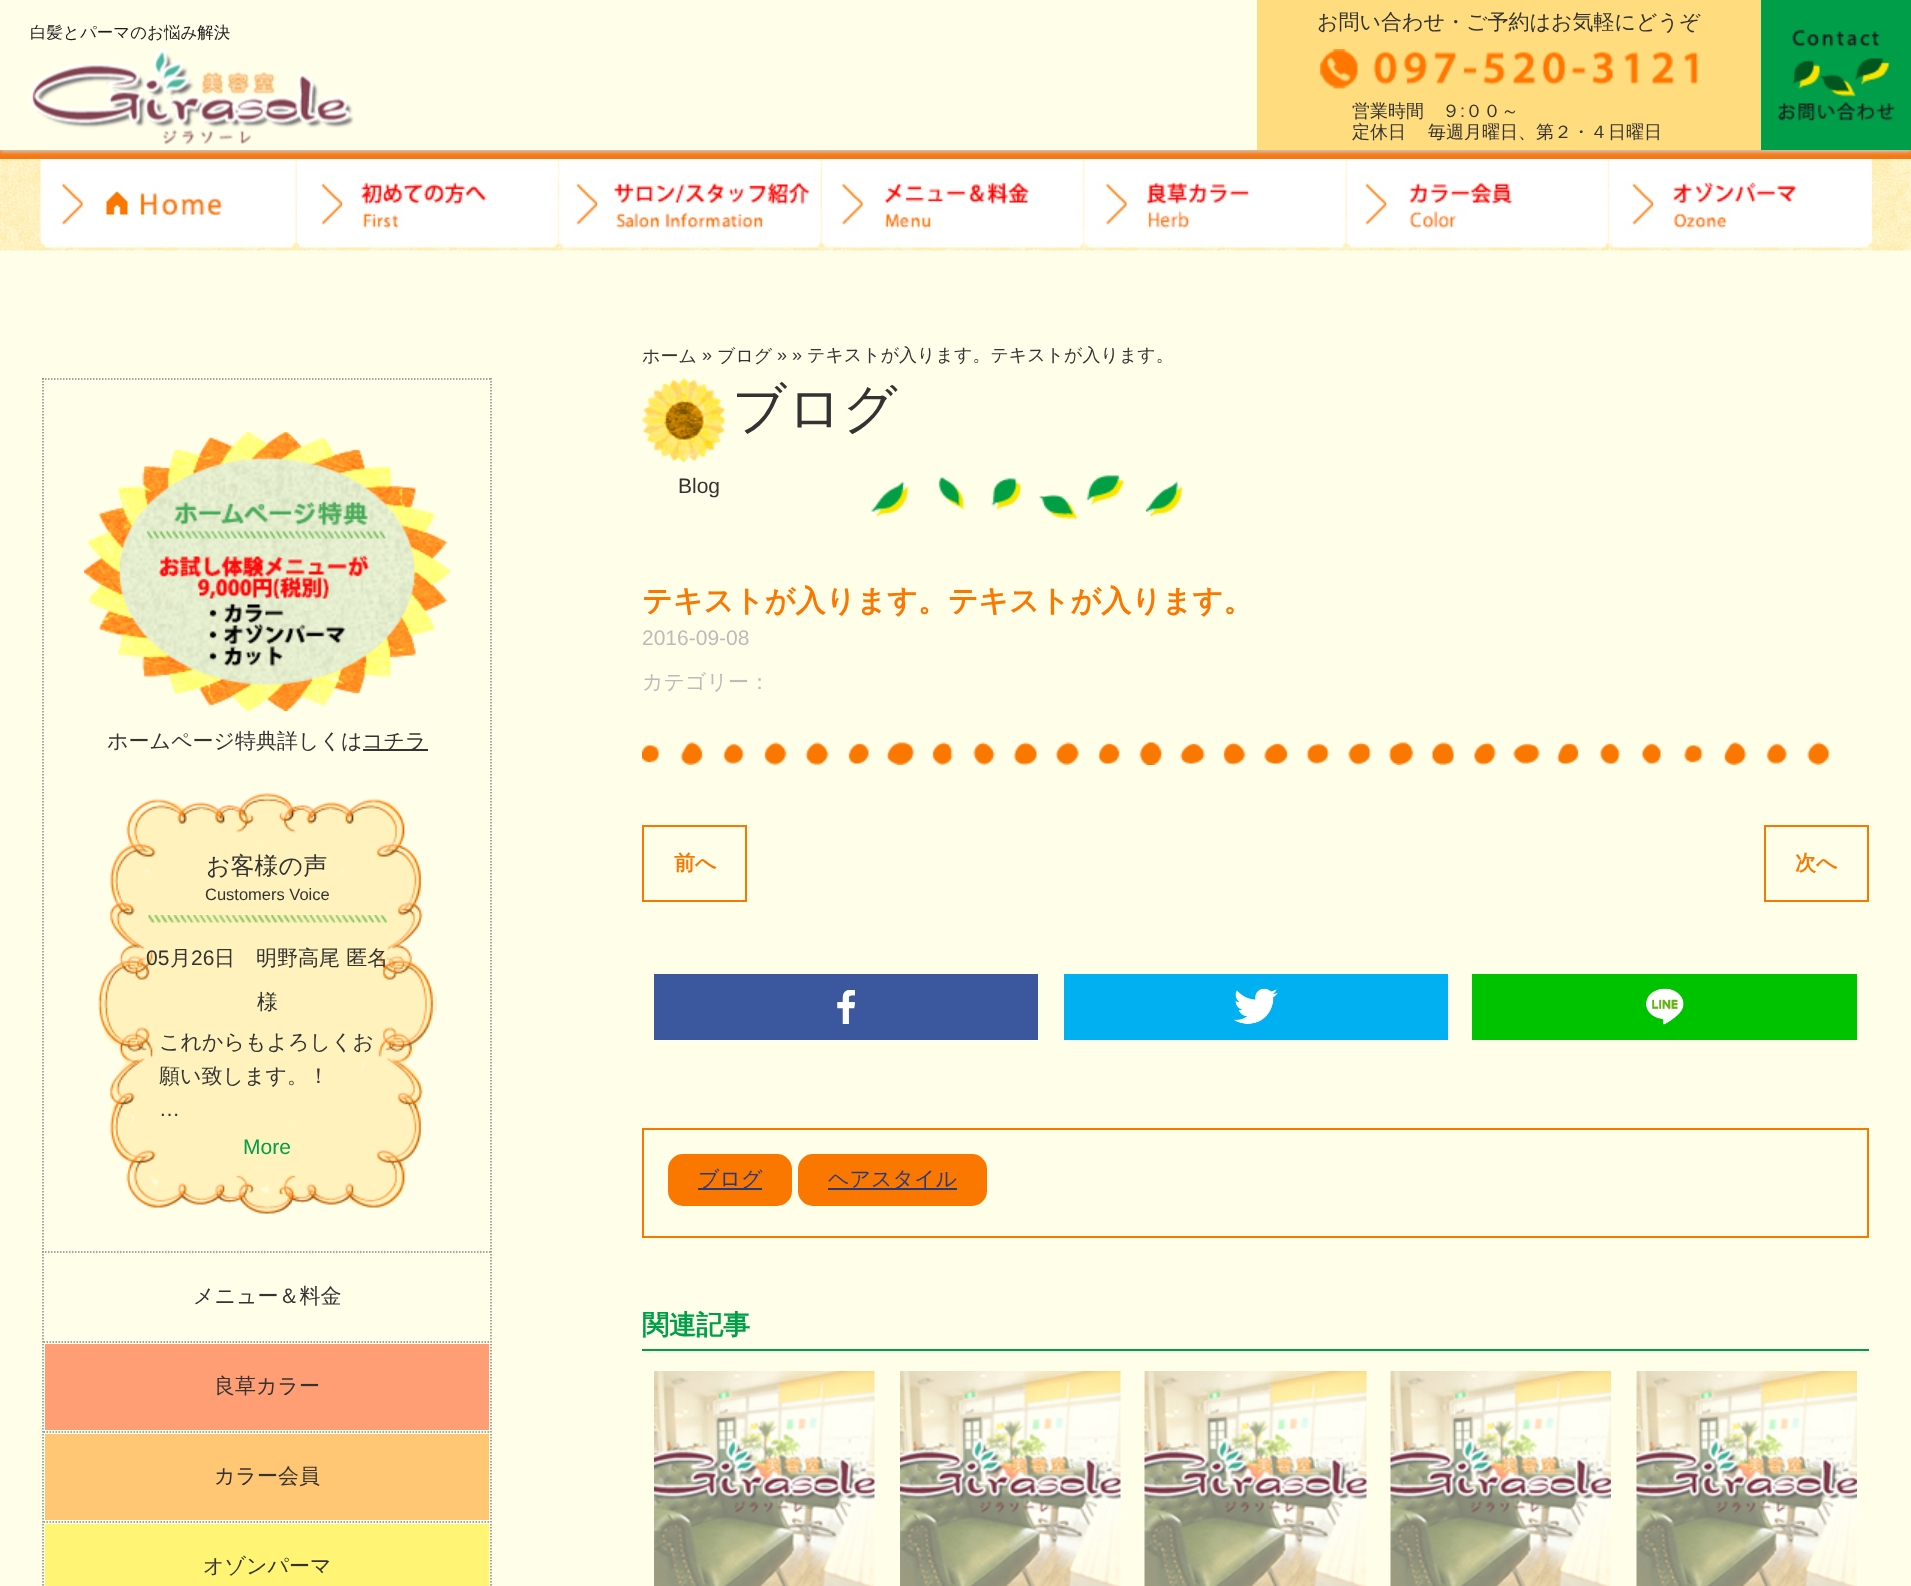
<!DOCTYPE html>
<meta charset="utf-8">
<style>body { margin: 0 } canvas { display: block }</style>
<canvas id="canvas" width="1911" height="1586"></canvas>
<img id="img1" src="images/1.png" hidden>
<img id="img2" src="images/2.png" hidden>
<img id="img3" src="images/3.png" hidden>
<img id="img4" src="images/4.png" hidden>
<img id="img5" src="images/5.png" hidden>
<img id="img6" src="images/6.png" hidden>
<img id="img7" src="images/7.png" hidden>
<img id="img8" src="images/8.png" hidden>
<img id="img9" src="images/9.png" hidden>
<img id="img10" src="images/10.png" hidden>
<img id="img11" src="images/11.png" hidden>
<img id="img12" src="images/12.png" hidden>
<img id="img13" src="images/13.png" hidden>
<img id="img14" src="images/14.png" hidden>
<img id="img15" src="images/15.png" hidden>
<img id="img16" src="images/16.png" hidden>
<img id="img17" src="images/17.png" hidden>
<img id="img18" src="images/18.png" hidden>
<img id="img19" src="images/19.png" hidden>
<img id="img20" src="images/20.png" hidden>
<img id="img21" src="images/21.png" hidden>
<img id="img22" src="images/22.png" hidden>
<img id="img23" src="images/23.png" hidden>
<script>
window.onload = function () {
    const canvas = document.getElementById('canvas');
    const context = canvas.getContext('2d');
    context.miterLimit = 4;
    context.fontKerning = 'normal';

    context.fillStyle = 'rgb(255, 255, 233)';
    context.fillRect(0, 0, 1911, 1586);
    context.fillStyle = 'rgb(248, 119, 15)';
    context.fillRect(0, 150, 1911, 9);
    context.save();
    context.beginPath();
    context.rect(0, 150, 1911, 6);
    context.clip();
    context.fillStyle = 'rgb(204, 204, 204)';
    context.filter = 'blur(2px)';
    context.beginPath();
    context.rect(0, 2, 1911, 150);
    context.fill();
    context.filter = 'none';
    context.restore();
    context.drawImage(document.getElementById('img1'), 30, 49, 324, 96);
    context.fillStyle = 'rgb(255, 220, 126)';
    context.fillRect(1257, 0, 504, 150);
    context.drawImage(document.getElementById('img2'), 1320, 49, 378, 40);
    context.fillStyle = 'rgb(0, 158, 73)';
    context.fillRect(1761, 0, 150, 150);
    context.drawImage(document.getElementById('img3'), 1777, 29, 118, 92);
    context.drawImage(document.getElementById('img4'), 0, 159, 1911, 92);
    context.fillStyle = 'rgb(255, 255, 255)';
    context.fillRect(41, 250, 256, 1);
    context.drawImage(document.getElementById('img5'), 40, 159, 257, 92);
    context.fillRect(297, 159, 263, 92);
    context.drawImage(document.getElementById('img6'), 297, 159, 263, 92);
    context.fillRect(560, 250, 262, 1);
    context.drawImage(document.getElementById('img7'), 559, 159, 263, 92);
    context.fillRect(822, 159, 263, 92);
    context.drawImage(document.getElementById('img8'), 822, 159, 263, 92);
    context.fillRect(1085, 250, 262, 1);
    context.drawImage(document.getElementById('img9'), 1084, 159, 263, 92);
    context.fillRect(1347, 159, 263, 92);
    context.drawImage(document.getElementById('img10'), 1347, 159, 263, 92);
    context.fillRect(1610, 250, 262, 1);
    context.drawImage(document.getElementById('img11'), 1609, 159, 263, 92);
    context.beginPath();
    context.moveTo(42, 379);
    context.lineTo(492, 379);
    context.strokeStyle = 'rgb(135, 135, 135)';
    context.lineWidth = 1.5;
    context.setLineDash([1.5, 1.5]);
    context.stroke();
    context.beginPath();
    context.moveTo(491, 378);
    context.lineTo(491, 1251);
    context.stroke();
    context.beginPath();
    context.moveTo(43, 378);
    context.lineTo(43, 1251);
    context.stroke();
    context.drawImage(document.getElementById('img12'), 84, 432, 366, 279);
    context.fillStyle = 'rgb(51, 51, 51)';
    context.fillRect(363, 749, 65, 2);
    context.drawImage(document.getElementById('img13'), 98, 793, 339, 421);
    context.drawImage(document.getElementById('img14'), 148, 915, 239, 8);
    context.beginPath();
    context.moveTo(42, 1252);
    context.lineTo(492, 1252);
    context.stroke();
    context.beginPath();
    context.moveTo(491, 1251);
    context.lineTo(491, 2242.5);
    context.stroke();
    context.beginPath();
    context.moveTo(43, 1251);
    context.lineTo(43, 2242.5);
    context.stroke();
    context.beginPath();
    context.moveTo(43.5, 1342);
    context.lineTo(490.5, 1342);
    context.stroke();
    context.beginPath();
    context.moveTo(43.5, 1432);
    context.lineTo(490.5, 1432);
    context.stroke();
    context.fillStyle = 'rgb(255, 158, 116)';
    context.fillRect(45, 1344, 444, 86);
    context.beginPath();
    context.moveTo(43.5, 1522);
    context.lineTo(490.5, 1522);
    context.stroke();
    context.fillStyle = 'rgb(255, 198, 116)';
    context.fillRect(45, 1434, 444, 86);
    context.fillStyle = 'rgb(255, 244, 116)';
    context.fillRect(45, 1524, 444, 62);
    context.drawImage(document.getElementById('img15'), 642, 378, 83, 84);
    context.drawImage(document.getElementById('img16'), 871, 475, 311, 44);
    context.drawImage(document.getElementById('img17'), 642, 742, 1188, 23);
    context.strokeStyle = 'rgb(250, 119, 0)';
    context.lineWidth = 2;
    context.setLineDash([]);
    context.strokeRect(643, 826, 103, 75);
    context.strokeRect(1765, 826, 103, 75);
    context.fillStyle = 'rgb(59, 87, 157)';
    context.fillRect(654, 974, 384, 66);
    context.drawImage(document.getElementById('img18'), 837, 990, 18, 34);
    context.fillStyle = 'rgb(0, 176, 240)';
    context.fillRect(1064, 974, 384, 66);
    context.drawImage(document.getElementById('img19'), 1234, 988, 44, 36);
    context.fillStyle = 'rgb(0, 195, 0)';
    context.fillRect(1472, 974, 385, 66);
    context.drawImage(document.getElementById('img20'), 1646, 988, 38, 37);
    context.strokeRect(643, 1129, 1225, 108);
    context.fillStyle = 'rgb(250, 119, 0)';
    context.beginPath();
    context.roundRect(668, 1154, 124, 52, 15);
    context.fill();
    context.fillStyle = 'rgb(40, 58, 120)';
    context.fillRect(698, 1188, 64, 2);
    context.fillStyle = 'rgb(250, 119, 0)';
    context.beginPath();
    context.roundRect(798, 1154, 189, 52, 15);
    context.fill();
    context.fillStyle = 'rgb(40, 58, 120)';
    context.fillRect(828, 1188, 129, 2);
    context.fillStyle = 'rgb(0, 158, 73)';
    context.fillRect(642, 1349, 1227, 2);
    context.drawImage(document.getElementById('img21'), 654, 1371, 221, 215);
    context.drawImage(document.getElementById('img21'), 900, 1371, 221, 215);
    context.drawImage(document.getElementById('img22'), 1144, 1371, 223, 215);
    context.drawImage(document.getElementById('img23'), 1390, 1371, 221, 215);
    context.drawImage(document.getElementById('img23'), 1636, 1371, 221, 215);
    context.font = '500 16.5px WenQuanYi Zen Hei';
    context.fillStyle = 'rgb(27, 27, 27)';
    context.fillText('白髪とパーマのお悩み解決', 30, 38);
    context.font = '500 21px WenQuanYi Zen Hei';
    context.fillStyle = 'rgb(51, 51, 51)';
    context.fillText('お問い合わせ・ご予約はお気軽にどうぞ', 1317, 29);
    context.font = '500 18px WenQuanYi Zen Hei';
    context.fillText('営業時間　９', 1352, 117);
    context.font = '18px Liberation Sans';
    context.fillText(':', 1460, 117);
    context.font = '500 18px WenQuanYi Zen Hei';
    context.fillText('００～', 1465, 117);
    context.fillText('定休日', 1352, 138);
    context.fillText('毎週月曜日、第２・４日曜日', 1428, 138);
    context.fillText('ホーム', 642, 362);
    context.font = '18px Liberation Sans';
    context.fillText('»', 702, 361);
    context.font = '500 18px WenQuanYi Zen Hei';
    context.fillText('ブログ', 717, 362);
    context.font = '18px Liberation Sans';
    context.fillText('» »', 777, 361);
    context.font = '500 18px WenQuanYi Zen Hei';
    context.fillText('テキストが入ります。テキストが入ります。', 807, 361);
    context.font = '500 21px WenQuanYi Zen Hei';
    context.fillText('ホームページ特典詳しくは', 107, 748);
    context.fillText('コチラ', 362, 748);
    context.font = '500 24px WenQuanYi Zen Hei';
    context.fillText('お客様の声', 206, 874);
    context.font = '16.5px Liberation Sans';
    context.fillText('Customers Voice', 205, 900);
    context.font = '21px Liberation Sans';
    context.fillText('05', 146, 965);
    context.font = '500 21px WenQuanYi Zen Hei';
    context.fillText('月', 170, 965);
    context.font = '21px Liberation Sans';
    context.fillText('26', 191, 965);
    context.font = '500 21px WenQuanYi Zen Hei';
    context.fillText('日　明野高尾 匿名', 214, 965);
    context.fillText('様', 257, 1009);
    context.fillText('これからもよろしくお', 159, 1049);
    context.fillText('願い致します。！', 159, 1083);
    context.font = '21px Liberation Sans';
    context.fillText('…', 159, 1116);
    context.fillStyle = 'rgb(0, 158, 73)';
    context.fillText('More', 243, 1154);
    context.font = '500 21px WenQuanYi Zen Hei';
    context.fillStyle = 'rgb(51, 51, 51)';
    context.fillText('メニュー＆料金', 193, 1303);
    context.fillText('良草カラー', 214, 1393);
    context.fillText('カラー会員', 214, 1483);
    context.fillText('オゾンパーマ', 203, 1573);
    context.font = '500 54px WenQuanYi Zen Hei';
    context.fillText('ブログ', 732, 427);
    context.font = '21px Liberation Sans';
    context.fillText('Blog', 678, 493);
    context.font = 'bold 30px WenQuanYi Zen Hei';
    context.fillStyle = 'rgb(250, 119, 0)';
    context.fillText('テキストが入ります。テキストが入ります。', 642, 611);
    context.font = '21px Liberation Sans';
    context.fillStyle = 'rgb(187, 187, 187)';
    context.fillText('2016-09-08', 642, 645);
    context.font = '500 21px WenQuanYi Zen Hei';
    context.fillText('カテゴリー：', 642, 689);
    context.font = 'bold 21px WenQuanYi Zen Hei';
    context.fillStyle = 'rgb(250, 119, 0)';
    context.fillText('前へ', 674, 870);
    context.fillText('次へ', 1795, 870);
    context.font = '500 21px WenQuanYi Zen Hei';
    context.fillStyle = 'rgb(40, 58, 120)';
    context.fillText('ブログ', 698, 1186);
    context.fillText('ヘアスタイル', 828, 1186);
    context.font = 'bold 27px WenQuanYi Zen Hei';
    context.fillStyle = 'rgb(0, 158, 73)';
    context.fillText('関連記事', 642, 1334);
};
</script>
